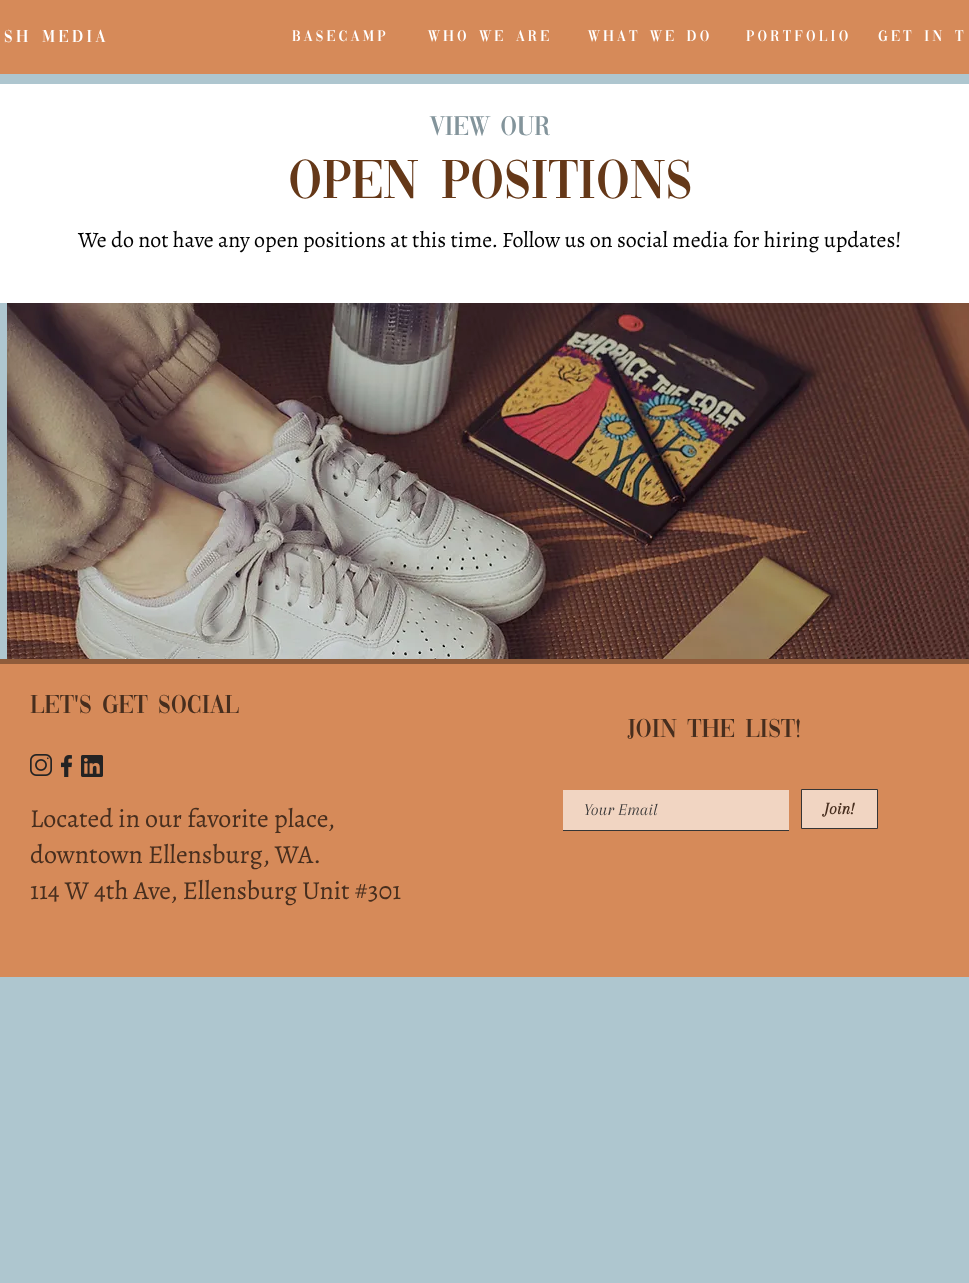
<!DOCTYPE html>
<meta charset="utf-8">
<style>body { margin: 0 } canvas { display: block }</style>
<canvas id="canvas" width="969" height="1283"></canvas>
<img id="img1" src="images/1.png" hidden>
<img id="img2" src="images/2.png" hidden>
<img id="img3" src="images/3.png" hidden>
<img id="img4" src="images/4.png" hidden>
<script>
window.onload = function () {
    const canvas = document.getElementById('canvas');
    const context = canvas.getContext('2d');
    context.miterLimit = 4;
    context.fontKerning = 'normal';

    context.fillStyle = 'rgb(174, 198, 207)';
    context.fillRect(0, 0, 969, 1283);
    context.fillStyle = 'rgb(214, 138, 89)';
    context.fillRect(0, 0, 969, 74);
    context.fillStyle = 'rgb(255, 255, 255)';
    context.fillRect(0, 84, 969, 219);
    context.drawImage(document.getElementById('img1'), 7, 303, 962, 356);
    context.fillStyle = 'rgb(214, 138, 89)';
    context.fillRect(0, 664, 969, 313);
    context.fillStyle = 'rgb(143, 92, 59)';
    context.fillRect(0, 659, 969, 5);
    context.drawImage(document.getElementById('img2'), 30, 754, 22, 22);
    context.drawImage(document.getElementById('img3'), 61, 755, 11, 22);
    context.drawImage(document.getElementById('img4'), 81, 755, 22, 22);
    context.fillStyle = 'rgb(54, 53, 53)';
    context.fillRect(563, 830, 226, 1);
    context.fillStyle = 'rgb(241, 213, 194)';
    context.fillRect(563, 790, 226, 40);
    context.beginPath();
    context.rect(801.5, 789.5, 76, 39);
    context.fill();
    context.strokeStyle = 'rgb(54, 53, 53)';
    context.stroke();
    context.letterSpacing = '3.5px';
    context.font = '18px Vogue';
    context.fillStyle = 'rgb(255, 255, 255)';
    context.fillText('sh Media', 4, 42);
    context.letterSpacing = '3.25px';
    context.font = '16px Vogue';
    context.fillText('BASECAMP', 292, 41);
    context.fillText('WHO WE ARE', 428, 41);
    context.fillText('WHAT WE DO', 588, 41);
    context.fillText('PORTFOLIO', 746, 41);
    context.fillText('GET IN T', 878, 41);
    context.letterSpacing = '0px';
    context.font = '28px Vogue';
    context.fillStyle = 'rgb(131, 148, 155)';
    context.fillText('View Our', 430, 135);
    context.font = '57px Vogue';
    context.fillStyle = 'rgb(101, 56, 24)';
    context.fillText('Open Positions', 288, 198);
    context.font = '22px Alegreya';
    context.fillStyle = 'rgb(0, 0, 0)';
    context.fillText('We do not have any open positions at this time. Follow us on social media for hiring updates!', 78, 247);
    context.font = '27px Vogue';
    context.fillStyle = 'rgb(71, 46, 30)';
    context.fillText('let', 30, 713);
    context.font = '27px Liberation Serif';
    context.fillText('\'', 74, 713);
    context.font = '27px Vogue';
    context.fillText('s get social', 79, 713);
    context.fillText('Join the List!', 627, 737);
    context.font = '26px Alegreya';
    context.fillText('Located in our favorite place,', 30, 827);
    context.fillText('downtown Ellensburg, WA.', 30, 863);
    context.fillText('114 W 4th Ave, Ellensburg Unit #301', 30, 899);
    context.font = 'italic 17px Arapey';
    context.fillStyle = 'rgb(54, 53, 53)';
    context.fillText('Your Email', 584, 815);
    context.font = 'italic bold 17px Arapey';
    context.fillStyle = 'rgb(71, 46, 30)';
    context.fillText('Join!', 824, 814);
};
</script>
